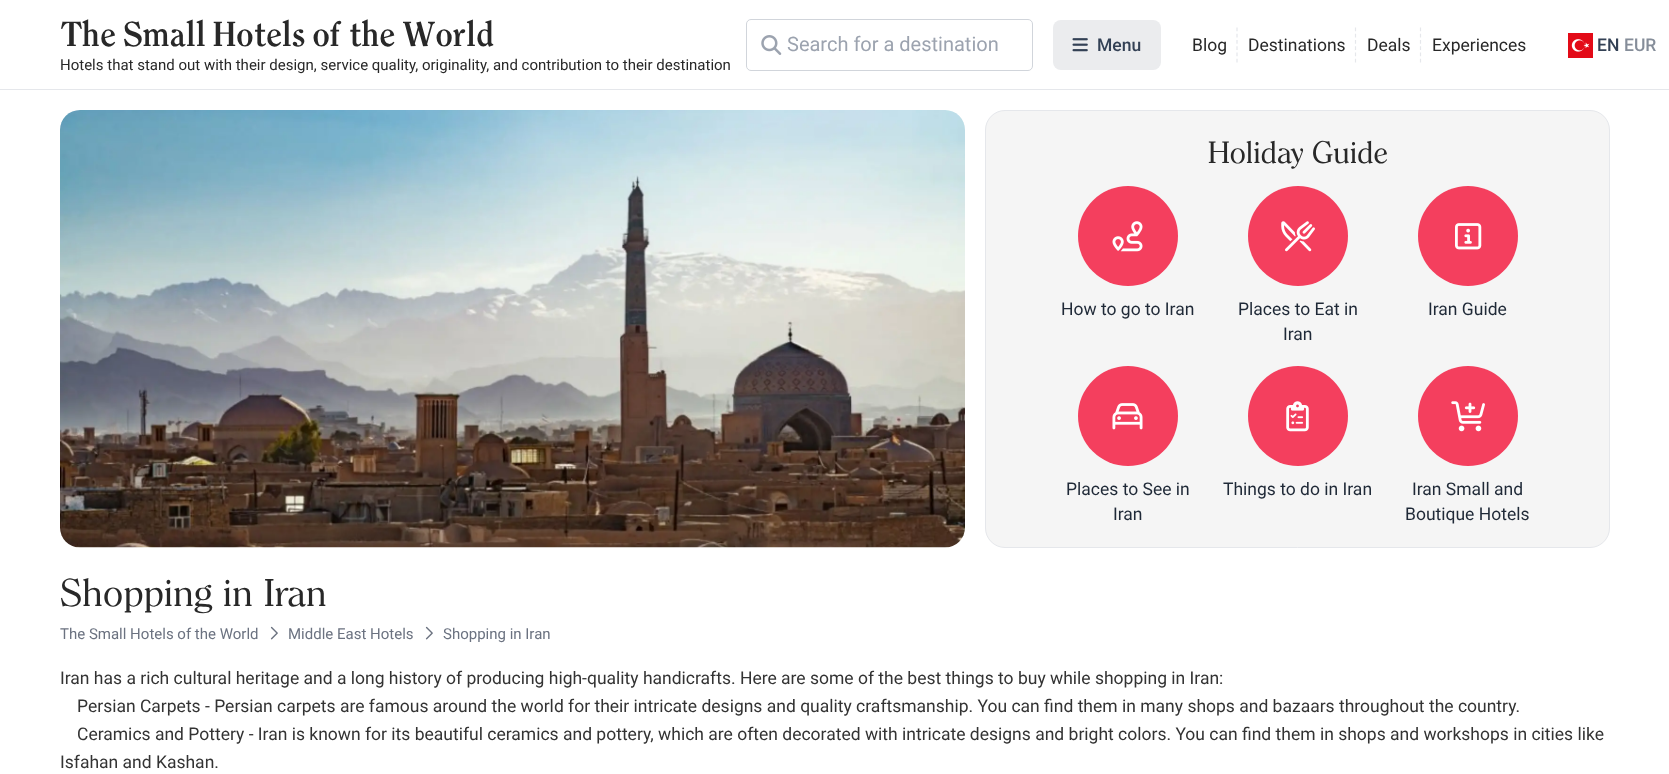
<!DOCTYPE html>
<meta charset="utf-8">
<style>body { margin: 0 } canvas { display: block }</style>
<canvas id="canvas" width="1669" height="774"></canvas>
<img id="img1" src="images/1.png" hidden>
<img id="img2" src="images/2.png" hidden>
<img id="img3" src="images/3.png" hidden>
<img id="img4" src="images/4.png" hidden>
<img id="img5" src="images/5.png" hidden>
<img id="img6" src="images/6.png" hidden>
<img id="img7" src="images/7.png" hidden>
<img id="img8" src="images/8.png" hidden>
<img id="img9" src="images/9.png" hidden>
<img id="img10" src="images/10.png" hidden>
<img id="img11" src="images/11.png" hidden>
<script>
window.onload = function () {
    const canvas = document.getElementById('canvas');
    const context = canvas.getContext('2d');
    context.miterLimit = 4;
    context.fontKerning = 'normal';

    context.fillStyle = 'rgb(255, 255, 255)';
    context.fillRect(0, 0, 1669, 774);
    context.fillStyle = 'rgb(229, 231, 235)';
    context.fillRect(0, 89, 1669, 1);
    context.beginPath();
    context.roundRect(746.5, 19.5, 286, 51, 4.5);
    context.strokeStyle = 'rgb(209, 213, 219)';
    context.stroke();
    context.drawImage(document.getElementById('img1'), 761, 35, 21, 20);
    context.fillStyle = 'rgb(235, 236, 238)';
    context.beginPath();
    context.roundRect(1053, 20, 108, 50, 8);
    context.fill();
    context.drawImage(document.getElementById('img2'), 1072, 38, 16, 14);
    context.beginPath();
    context.moveTo(1237, 27.5);
    context.lineTo(1237, 62.5);
    context.strokeStyle = 'rgb(229, 231, 235)';
    context.lineWidth = 1.2;
    context.setLineDash([3.75, 2.5]);
    context.stroke();
    context.beginPath();
    context.moveTo(1355.5, 27.5);
    context.lineTo(1355.5, 62.5);
    context.stroke();
    context.beginPath();
    context.moveTo(1420.5, 27.5);
    context.lineTo(1420.5, 62.5);
    context.stroke();
    context.drawImage(document.getElementById('img3'), 1568, 33, 25, 25);
    context.drawImage(document.getElementById('img4'), 60, 110, 905, 438);
    context.fillStyle = 'rgb(245, 245, 245)';
    context.beginPath();
    context.roundRect(985.5, 110.5, 624, 437, 19.5);
    context.fill();
    context.lineWidth = 1;
    context.setLineDash([]);
    context.stroke();
    context.fillStyle = 'rgb(244, 63, 94)';
    context.beginPath();
    context.arc(1128, 236, 50, 0, 2 * Math.PI);
    context.fill();
    context.drawImage(document.getElementById('img5'), 1112, 221, 31, 31);
    context.beginPath();
    context.arc(1298, 236, 50, 0, 2 * Math.PI);
    context.fill();
    context.drawImage(document.getElementById('img6'), 1281, 221, 34, 31);
    context.beginPath();
    context.arc(1468, 236, 50, 0, 2 * Math.PI);
    context.fill();
    context.drawImage(document.getElementById('img7'), 1455, 223, 27, 27);
    context.beginPath();
    context.arc(1128, 416, 50, 0, 2 * Math.PI);
    context.fill();
    context.drawImage(document.getElementById('img8'), 1112, 403, 31, 27);
    context.beginPath();
    context.arc(1298, 416, 50, 0, 2 * Math.PI);
    context.fill();
    context.drawImage(document.getElementById('img9'), 1286, 401, 23, 31);
    context.beginPath();
    context.arc(1468, 416, 50, 0, 2 * Math.PI);
    context.fill();
    context.drawImage(document.getElementById('img10'), 1451, 401, 34, 31);
    context.drawImage(document.getElementById('img11'), 270, 626, 8, 14);
    context.drawImage(document.getElementById('img11'), 425, 626, 8, 14);
    context.font = 'bold 30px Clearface';
    context.fillStyle = 'rgb(40, 40, 40)';
    context.fillText('The Small Hotels of the World', 60, 46);
    context.font = '15px Roboto';
    context.fillText('Hotels that stand out with their design, service quality, originality, and contribution to their destination', 60, 70);
    context.font = '20px Roboto';
    context.fillStyle = 'rgb(156, 163, 175)';
    context.fillText('Search for a destination', 787, 51);
    context.font = '500 17.5px Roboto';
    context.fillStyle = 'rgb(51, 65, 85)';
    context.fillText('Menu', 1097, 51);
    context.font = '17.5px Roboto';
    context.fillStyle = 'rgb(40, 40, 40)';
    context.fillText('Blog', 1192, 51);
    context.fillText('Destinations', 1248, 51);
    context.fillText('Deals', 1367, 51);
    context.fillText('Experiences', 1432, 51);
    context.font = '500 17.5px Roboto';
    context.fillStyle = 'rgb(51, 65, 85)';
    context.fillText('EN', 1597, 51);
    context.fillStyle = 'rgb(133, 141, 153)';
    context.fillText('EUR', 1624, 51);
    context.font = '30px Clearface';
    context.fillStyle = 'rgb(40, 40, 40)';
    context.fillText('Holiday Guide', 1208, 163);
    context.font = '17.5px Roboto';
    context.fillStyle = 'rgb(31, 41, 55)';
    context.fillText('How to go to Iran', 1061, 315);
    context.fillText('Places to Eat in', 1238, 315);
    context.fillText('Iran', 1283, 340);
    context.fillText('Iran Guide', 1428, 315);
    context.fillText('Places to See in', 1066, 495);
    context.fillText('Iran', 1113, 520);
    context.fillText('Things to do in Iran', 1223, 495);
    context.fillText('Iran Small and', 1412, 495);
    context.fillText('Boutique Hotels', 1405, 520);
    context.font = '37.5px Clearface';
    context.fillStyle = 'rgb(40, 40, 40)';
    context.fillText('Shopping in Iran', 60, 606);
    context.font = '15px Roboto';
    context.fillStyle = 'rgb(107, 114, 128)';
    context.fillText('The Small Hotels of the World', 60, 639);
    context.fillText('Middle East Hotels', 288, 639);
    context.fillText('Shopping in Iran', 443, 639);
    context.font = '17.5px Roboto';
    context.fillStyle = 'rgb(51, 51, 51)';
    context.fillText('Iran has a rich cultural heritage and a long history of producing high-quality handicrafts. Here are some of the best things to buy while shopping in Iran:', 60, 684);
    context.fillText('Persian Carpets - Persian carpets are famous around the world for their intricate designs and quality craftsmanship. You can find them in many shops and bazaars throughout the country.', 77, 712);
    context.fillText('Ceramics and Pottery - Iran is known for its beautiful ceramics and pottery, which are often decorated with intricate designs and bright colors. You can find them in shops and workshops in cities like', 77, 740);
    context.fillText('Isfahan and Kashan.', 60, 768);
};
</script>
